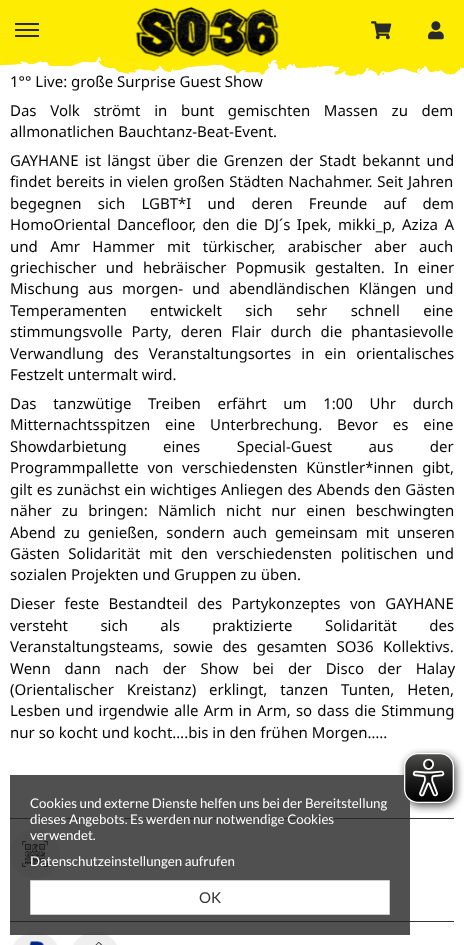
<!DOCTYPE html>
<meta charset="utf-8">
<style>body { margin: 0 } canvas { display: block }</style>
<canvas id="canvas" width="464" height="945"></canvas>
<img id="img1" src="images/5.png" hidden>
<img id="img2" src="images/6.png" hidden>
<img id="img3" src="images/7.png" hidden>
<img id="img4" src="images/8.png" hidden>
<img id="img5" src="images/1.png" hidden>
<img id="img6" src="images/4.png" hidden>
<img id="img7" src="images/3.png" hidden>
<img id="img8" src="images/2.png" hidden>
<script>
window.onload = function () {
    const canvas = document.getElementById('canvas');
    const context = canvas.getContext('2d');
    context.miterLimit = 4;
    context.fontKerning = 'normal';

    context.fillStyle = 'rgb(255, 255, 255)';
    context.fillRect(0, 0, 464, 945);
    context.fillStyle = 'rgb(51, 51, 51)';
    context.fillRect(10, 818, 444, 1);
    context.drawImage(document.getElementById('img1'), 10, 829, 50, 50);
    context.fillRect(10, 921, 444, 1);
    context.drawImage(document.getElementById('img2'), 13, 932, 45, 13);
    context.drawImage(document.getElementById('img3'), 73, 932, 44, 13);
    context.fillStyle = 'rgba(36, 36, 36, 0.8)';
    context.fillRect(10, 775, 400, 160);
    context.drawImage(document.getElementById('img4'), 398, 748, 66, 66);
    context.fillStyle = 'rgb(255, 255, 255)';
    context.beginPath();
    context.rect(30.5, 880.5, 359, 34);
    context.fill();
    context.strokeStyle = 'rgb(204, 204, 204)';
    context.stroke();
    context.font = '15px Noto Sans';
    context.fillStyle = 'rgb(5, 5, 5)';
    context.fillText('1°° Live: große Surprise Guest Show', 10, 87);
    context.drawImage(document.getElementById('img5'), 0, 0, 464, 76);
    context.fillStyle = 'rgb(42, 42, 42)';
    context.fillRect(15, 35, 24, 2);
    context.fillRect(15, 23, 24, 2);
    context.fillRect(15, 29, 24, 2);
    context.drawImage(document.getElementById('img6'), 428, 21, 16, 19);
    context.drawImage(document.getElementById('img7'), 371, 21, 21, 19);
    context.drawImage(document.getElementById('img8'), 135, 7, 144, 50);
    context.wordSpacing = '9.75px';
    context.fillStyle = 'rgb(5, 5, 5)';
    context.fillText('Das Volk strömt in bunt gemischten Massen zu dem', 10, 116);
    context.wordSpacing = '0px';
    context.fillText('allmonatlichen Bauchtanz-Beat-Event.', 10, 137);
    context.wordSpacing = '2.25px';
    context.fillText('GAYHANE ist längst über die Grenzen der Stadt bekannt und', 10, 166);
    context.wordSpacing = '0.75px';
    context.fillText('findet bereits in vielen großen Städten Nachahmer. Seit Jahren', 10, 187);
    context.wordSpacing = '12.25px';
    context.fillText('begegnen sich LGBT*I und deren Freunde auf dem', 10, 209);
    context.wordSpacing = '2.5px';
    context.fillText('HomoOriental Dancefloor, den die DJ´s Ipek, mikki_p, Aziza A', 10, 230);
    context.wordSpacing = '8.5px';
    context.fillText('und Amr Hammer mit türkischer, arabischer aber auch', 10, 252);
    context.wordSpacing = '5.5px';
    context.fillText('griechischer und hebräischer Popmusik gestalten. In einer', 10, 273);
    context.wordSpacing = '5.25px';
    context.fillText('Mischung aus morgen- und abendländischen Klängen und', 10, 294);
    context.wordSpacing = '19.5px';
    context.fillText('Temperamenten entwickelt sich sehr schnell eine', 10, 316);
    context.wordSpacing = '5.25px';
    context.fillText('stimmungsvolle Party, deren Flair durch die phantasievolle', 10, 337);
    context.wordSpacing = '6.25px';
    context.fillText('Verwandlung des Veranstaltungsortes in ein orientalisches', 10, 359);
    context.wordSpacing = '0px';
    context.fillText('Festzelt untermalt wird.', 10, 380);
    context.wordSpacing = '12.75px';
    context.fillText('Das tanzwütige Treiben erfährt um 1:00 Uhr durch', 10, 409);
    context.wordSpacing = '11px';
    context.fillText('Mitternachtsspitzen eine Unterbrechung. Bevor es eine', 10, 430);
    context.wordSpacing = '32.5px';
    context.fillText('Showdarbietung eines Special-Guest aus der', 10, 452);
    context.wordSpacing = '4.75px';
    context.fillText('Programmpallette von verschiedensten Künstler*innen gibt,', 10, 473);
    context.wordSpacing = '0.5px';
    context.fillText('gilt es zunächst ein wichtiges Anliegen des Abends den Gästen', 10, 495);
    context.wordSpacing = '6.25px';
    context.fillText('näher zu bringen: Nämlich nicht nur einen beschwingten', 10, 516);
    context.wordSpacing = '4px';
    context.fillText('Abend zu genießen, sondern auch gemeinsam mit unseren', 10, 538);
    context.wordSpacing = '4.75px';
    context.fillText('Gästen Solidarität mit den verschiedensten politischen und', 10, 559);
    context.wordSpacing = '0px';
    context.fillText('sozialen Projekten und Gruppen zu üben.', 10, 580);
    context.wordSpacing = '5.5px';
    context.fillText('Dieser feste Bestandteil des Partykonzeptes von GAYHANE', 10, 609);
    context.wordSpacing = '28.5px';
    context.fillText('versteht sich als praktizierte Solidarität des', 10, 631);
    context.wordSpacing = '5.5px';
    context.fillText('Veranstaltungsteams, sowie des gesamten SO36 Kollektivs.', 10, 652);
    context.wordSpacing = '10px';
    context.fillText('Wenn dann nach der Show bei der Disco der Halay', 10, 674);
    context.wordSpacing = '9px';
    context.fillText('(Orientalischer Kreistanz) erklingt, tanzen Tunten, Heten,', 10, 695);
    context.wordSpacing = '1.25px';
    context.fillText('Lesben und irgendwie alle Arm in Arm, so dass die Stimmung', 10, 716);
    context.wordSpacing = '0px';
    context.fillText('nur so kocht und kocht….bis in den frühen Morgen…..', 10, 738);
    context.font = '13.3px Lato';
    context.fillStyle = 'rgb(255, 255, 255)';
    context.fillText('Cookies und externe Dienste helfen uns bei der Bereitstellung', 30, 808);
    context.fillText('dieses Angebots. Es werden nur notwendige Cookies', 30, 824);
    context.fillText('verwendet.', 30, 840);
    context.fillText('Datenschutzeinstellungen aufrufen', 30, 866);
    context.font = '15px Lato';
    context.fillStyle = 'rgb(51, 51, 51)';
    context.fillText('OK', 199, 903);
};
</script>
